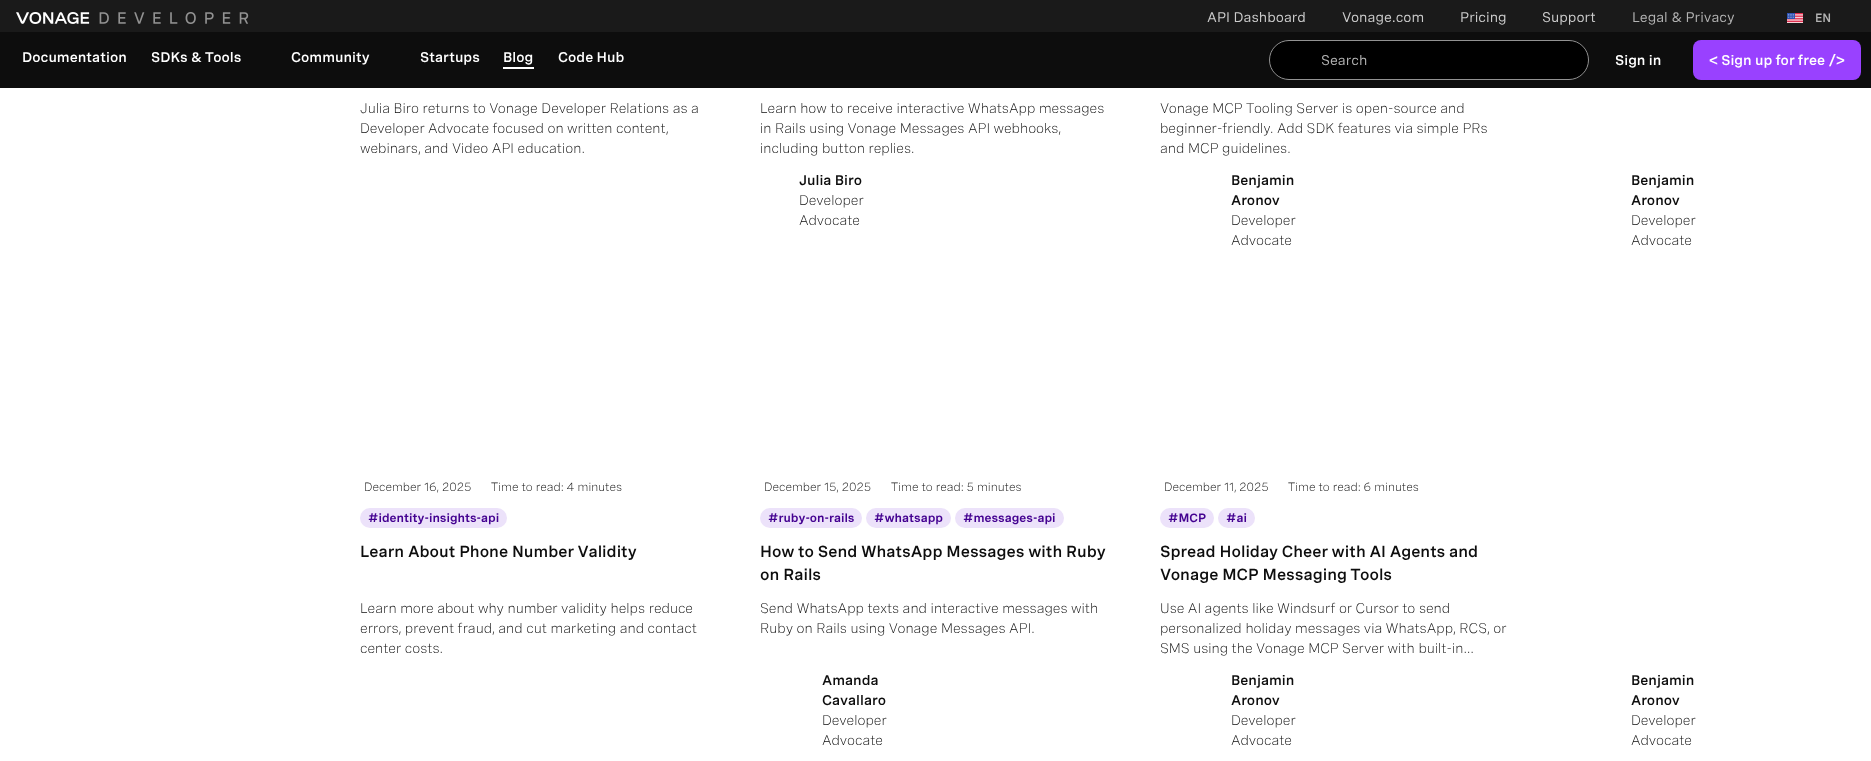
<!DOCTYPE html>
<meta charset="utf-8">
<style>body { margin: 0 } canvas { display: block }</style>
<canvas id="canvas" width="1871" height="761"></canvas>
<img id="img1" src="images/1.png" hidden>
<img id="img2" src="images/2.png" hidden>
<script>
window.onload = function () {
    const canvas = document.getElementById('canvas');
    const context = canvas.getContext('2d');
    context.miterLimit = 4;
    context.fontKerning = 'normal';

    context.fillStyle = 'rgb(255, 255, 255)';
    context.fillRect(0, 0, 1871, 761);
    context.fillStyle = 'rgb(26, 26, 26)';
    context.fillRect(0, 0, 1871, 32);
    context.drawImage(document.getElementById('img1'), 16, 12, 233, 12);
    context.drawImage(document.getElementById('img2'), 1787, 13, 16, 10);
    context.fillStyle = 'rgb(13, 13, 13)';
    context.fillRect(0, 32, 1871, 56);
    context.fillStyle = 'rgb(255, 255, 255)';
    context.fillRect(503, 67, 31, 2);
    context.fillStyle = 'rgb(0, 0, 0)';
    context.beginPath();
    context.roundRect(1269, 40, 320, 40, 20);
    context.fill();
    context.beginPath();
    context.roundRect(1269.5, 40.5, 319, 39, 19.5);
    context.strokeStyle = 'rgb(146, 146, 146)';
    context.stroke();
    context.fillStyle = 'rgb(153, 65, 255)';
    context.beginPath();
    context.roundRect(1693, 40, 168, 40, 8);
    context.fill();
    context.fillStyle = 'rgb(236, 226, 250)';
    context.beginPath();
    context.roundRect(360, 508, 147, 20, 10);
    context.fill();
    context.beginPath();
    context.roundRect(760, 508, 102, 20, 10);
    context.fill();
    context.beginPath();
    context.roundRect(866, 508, 85, 20, 10);
    context.fill();
    context.beginPath();
    context.roundRect(955, 508, 109, 20, 10);
    context.fill();
    context.beginPath();
    context.roundRect(1160, 508, 54, 20, 10);
    context.fill();
    context.beginPath();
    context.roundRect(1218, 508, 37, 20, 10);
    context.fill();
    context.font = '14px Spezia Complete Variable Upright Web';
    context.fillStyle = 'rgb(204, 204, 204)';
    context.fillText('API Dashboard', 1207, 22);
    context.fillText('Vonage.com', 1342, 22);
    context.fillText('Pricing', 1460, 22);
    context.fillText('Support', 1542, 22);
    context.fillStyle = 'rgb(179, 179, 179)';
    context.fillText('Legal & Privacy', 1632, 22);
    context.font = '600 12px Spezia Complete Variable Upright Web';
    context.fillText('EN', 1815, 22);
    context.font = '600 14px Spezia Complete Variable Upright Web';
    context.fillStyle = 'rgb(255, 255, 255)';
    context.fillText('Documentation', 22, 62);
    context.fillText('SDKs & Tools', 151, 62);
    context.fillText('Community', 291, 62);
    context.fillText('Startups', 420, 62);
    context.fillText('Blog', 503, 62);
    context.fillText('Code Hub', 558, 62);
    context.font = '14px Spezia Complete Variable Upright Web';
    context.fillStyle = 'rgb(179, 179, 179)';
    context.fillText('Search', 1321, 65);
    context.font = '600 14px Spezia Complete Variable Upright Web';
    context.fillStyle = 'rgb(255, 255, 255)';
    context.fillText('Sign in', 1615, 65);
    context.fillText('< Sign up for free />', 1709, 65);
    context.font = '200 14px Spezia Complete Variable Upright Web';
    context.fillStyle = 'rgb(13, 13, 13)';
    context.fillText('Julia Biro returns to Vonage Developer Relations as a', 360, 113);
    context.fillText('Developer Advocate focused on written content,', 360, 133);
    context.fillText('webinars, and Video API education.', 360, 153);
    context.font = '600 14px Spezia Complete Variable Upright Web';
    context.fillText('Julia Biro', 799, 185);
    context.font = '200 14px Spezia Complete Variable Upright Web';
    context.fillText('Developer', 799, 205);
    context.fillText('Advocate', 799, 225);
    context.fillText('Learn how to receive interactive WhatsApp messages', 760, 113);
    context.fillText('in Rails using Vonage Messages API webhooks,', 760, 133);
    context.fillText('including button replies.', 760, 153);
    context.font = '600 14px Spezia Complete Variable Upright Web';
    context.fillText('Benjamin', 1231, 185);
    context.fillText('Aronov', 1231, 205);
    context.font = '200 14px Spezia Complete Variable Upright Web';
    context.fillText('Developer', 1231, 225);
    context.fillText('Advocate', 1231, 245);
    context.fillText('Vonage MCP Tooling Server is open-source and', 1160, 113);
    context.fillText('beginner-friendly. Add SDK features via simple PRs', 1160, 133);
    context.fillText('and MCP guidelines.', 1160, 153);
    context.font = '600 14px Spezia Complete Variable Upright Web';
    context.fillText('Benjamin', 1631, 185);
    context.fillText('Aronov', 1631, 205);
    context.font = '200 14px Spezia Complete Variable Upright Web';
    context.fillText('Developer', 1631, 225);
    context.fillText('Advocate', 1631, 245);
    context.font = '200 12px Spezia Complete Variable Upright Web';
    context.fillText('December 16, 2025', 364, 491);
    context.fillText('Time to read: 4 minutes', 491, 491);
    context.font = 'bold 12px Spezia Complete Variable Upright Web';
    context.fillStyle = 'rgb(68, 2, 145)';
    context.fillText('#identity-insights-api', 368, 522);
    context.font = '600 16px Spezia Complete Variable Upright Web';
    context.fillStyle = 'rgb(13, 13, 13)';
    context.fillText('Learn About Phone Number Validity', 360, 557);
    context.font = '200 14px Spezia Complete Variable Upright Web';
    context.fillText('Learn more about why number validity helps reduce', 360, 613);
    context.fillText('errors, prevent fraud, and cut marketing and contact', 360, 633);
    context.fillText('center costs.', 360, 653);
    context.font = '600 14px Spezia Complete Variable Upright Web';
    context.fillText('Amanda', 822, 685);
    context.fillText('Cavallaro', 822, 705);
    context.font = '200 14px Spezia Complete Variable Upright Web';
    context.fillText('Developer', 822, 725);
    context.fillText('Advocate', 822, 745);
    context.font = '200 12px Spezia Complete Variable Upright Web';
    context.fillText('December 15, 2025', 764, 491);
    context.fillText('Time to read: 5 minutes', 891, 491);
    context.font = 'bold 12px Spezia Complete Variable Upright Web';
    context.fillStyle = 'rgb(68, 2, 145)';
    context.fillText('#ruby-on-rails', 768, 522);
    context.fillText('#whatsapp', 874, 522);
    context.fillText('#messages-api', 963, 522);
    context.font = '600 16px Spezia Complete Variable Upright Web';
    context.fillStyle = 'rgb(13, 13, 13)';
    context.fillText('How to Send WhatsApp Messages with Ruby', 760, 557);
    context.fillText('on Rails', 760, 580);
    context.font = '200 14px Spezia Complete Variable Upright Web';
    context.fillText('Send WhatsApp texts and interactive messages with', 760, 613);
    context.fillText('Ruby on Rails using Vonage Messages API.', 760, 633);
    context.font = '600 14px Spezia Complete Variable Upright Web';
    context.fillText('Benjamin', 1231, 685);
    context.fillText('Aronov', 1231, 705);
    context.font = '200 14px Spezia Complete Variable Upright Web';
    context.fillText('Developer', 1231, 725);
    context.fillText('Advocate', 1231, 745);
    context.font = '200 12px Spezia Complete Variable Upright Web';
    context.fillText('December 11, 2025', 1164, 491);
    context.fillText('Time to read: 6 minutes', 1288, 491);
    context.font = 'bold 12px Spezia Complete Variable Upright Web';
    context.fillStyle = 'rgb(68, 2, 145)';
    context.fillText('#MCP', 1168, 522);
    context.fillText('#ai', 1226, 522);
    context.font = '600 16px Spezia Complete Variable Upright Web';
    context.fillStyle = 'rgb(13, 13, 13)';
    context.fillText('Spread Holiday Cheer with AI Agents and', 1160, 557);
    context.fillText('Vonage MCP Messaging Tools', 1160, 580);
    context.font = '200 14px Spezia Complete Variable Upright Web';
    context.fillText('Use AI agents like Windsurf or Cursor to send', 1160, 613);
    context.fillText('personalized holiday messages via WhatsApp, RCS, or', 1160, 633);
    context.fillText('SMS using the Vonage MCP Server with built-in…', 1160, 653);
    context.font = '600 14px Spezia Complete Variable Upright Web';
    context.fillText('Benjamin', 1631, 685);
    context.fillText('Aronov', 1631, 705);
    context.font = '200 14px Spezia Complete Variable Upright Web';
    context.fillText('Developer', 1631, 725);
    context.fillText('Advocate', 1631, 745);
};
</script>
